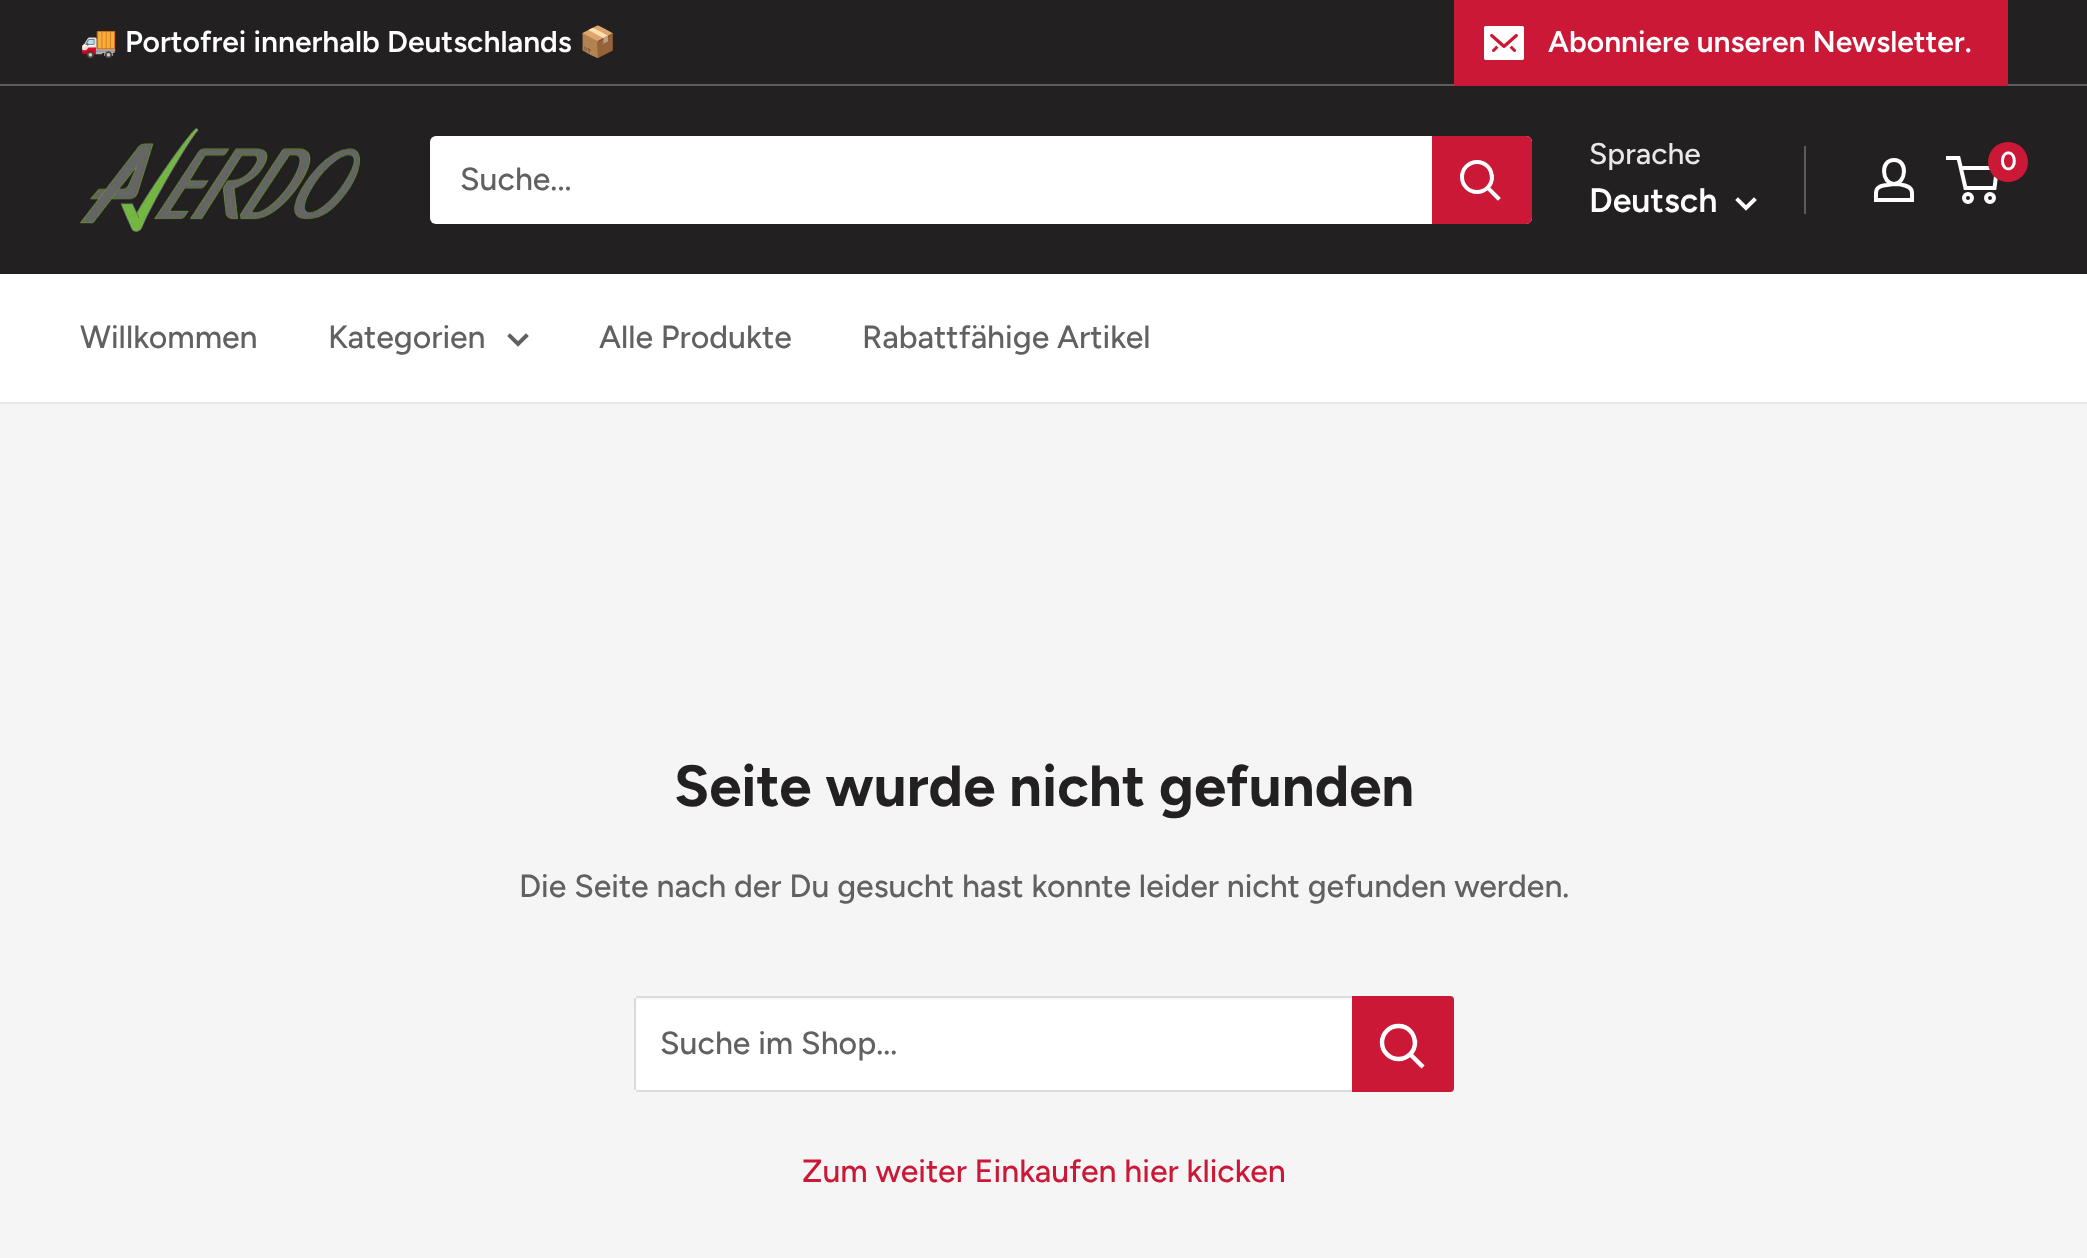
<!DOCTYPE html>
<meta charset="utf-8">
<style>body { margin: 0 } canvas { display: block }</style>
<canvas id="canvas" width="2087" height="1258"></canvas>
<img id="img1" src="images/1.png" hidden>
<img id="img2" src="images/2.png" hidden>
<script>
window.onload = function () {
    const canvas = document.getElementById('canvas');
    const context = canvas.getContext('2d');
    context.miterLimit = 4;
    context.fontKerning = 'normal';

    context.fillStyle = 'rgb(245, 245, 245)';
    context.fillRect(0, 0, 2087, 1258);
    context.fillStyle = 'rgb(34, 32, 33)';
    context.fillRect(0, 0, 2087, 84);
    context.fillStyle = 'rgb(93, 92, 93)';
    context.fillRect(0, 84, 2087, 2);
    context.fillStyle = 'rgb(203, 24, 54)';
    context.fillRect(1454, 0, 554, 86);
    context.drawImage(document.getElementById('img1'), 1484, 26, 40, 34);
    context.fillStyle = 'rgb(34, 32, 33)';
    context.fillRect(0, 86, 2087, 188);
    context.drawImage(document.getElementById('img2'), 80, 128, 280, 104);
    context.fillStyle = 'rgb(255, 255, 255)';
    context.beginPath();
    context.roundRect(430, 136, 1102, 88, 6);
    context.fill();
    context.fillStyle = 'rgb(203, 24, 54)';
    context.beginPath();
    context.roundRect(1432, 136, 100, 88, [0, 6, 6, 0]);
    context.fill();
    context.beginPath();
    context.moveTo(1498, 198);
    context.lineTo(1488, 188);
    context.strokeStyle = 'rgb(255, 255, 255)';
    context.lineWidth = 4;
    context.lineCap = 'square';
    context.stroke();
    context.beginPath();
    context.arc(1477, 177, 15, 0, 2 * Math.PI);
    context.stroke();
    context.beginPath();
    context.moveTo(1754, 200);
    context.lineTo(1746, 208);
    context.lineTo(1738, 200);
    context.stroke();
    context.fillStyle = 'rgb(93, 92, 93)';
    context.fillRect(1804, 146, 2, 68);
    context.beginPath();
    context.moveTo(1894, 184);
    context.bezierCurveTo(1898, 184, 1901.5, 184.5, 1905, 185.5);
    context.bezierCurveTo(1913.5, 188, 1912, 192.5, 1912, 200);
    context.lineTo(1876, 200);
    context.bezierCurveTo(1876, 192, 1874.5, 187.5, 1883.5, 185.5);
    context.closePath();
    context.moveTo(1894, 184);
    context.bezierCurveTo(1882, 184, 1879.5, 160, 1894, 160);
    context.bezierCurveTo(1908.5, 160, 1906, 184, 1894, 184);
    context.closePath();
    context.lineCap = 'butt';
    context.stroke();
    context.beginPath();
    context.arc(1968, 198, 4, 0, 2 * Math.PI);
    context.stroke();
    context.beginPath();
    context.arc(1990, 198, 4, 0, 2 * Math.PI);
    context.stroke();
    context.beginPath();
    context.moveTo(1960.5, 168);
    context.lineTo(1997, 168);
    context.lineTo(1994.5, 188);
    context.lineTo(1965.5, 188);
    context.lineTo(1958.5, 158);
    context.lineTo(1946, 158);
    context.stroke();
    context.fillStyle = 'rgb(203, 24, 54)';
    context.beginPath();
    context.arc(2008, 162, 20, 0, 2 * Math.PI);
    context.fill();
    context.fillStyle = 'rgb(255, 255, 255)';
    context.fillRect(0, 274, 2087, 128);
    context.fillStyle = 'rgb(232, 232, 232)';
    context.fillRect(0, 402, 2087, 2);
    context.beginPath();
    context.moveTo(526, 336);
    context.lineTo(518, 344);
    context.lineTo(510, 336);
    context.strokeStyle = 'rgb(97, 97, 97)';
    context.lineCap = 'square';
    context.stroke();
    context.fillStyle = 'rgb(255, 255, 255)';
    context.beginPath();
    context.roundRect(634, 996, 718, 96, [4, 0, 0, 4]);
    context.fill();
    context.fillStyle = 'rgb(249, 249, 249)';
    context.beginPath();
    context.moveTo(638, 1000);
    context.lineTo(1352, 1000);
    context.lineTo(1352, 998);
    context.lineTo(638, 998);
    context.lineTo(636, 999);
    context.lineTo(636, 1002);
    context.bezierCurveTo(636, 1001, 637, 1000, 638, 1000);
    context.closePath();
    context.fill();
    context.fillStyle = 'rgb(219, 219, 219)';
    context.fillRect(636, 996, 716, 2);
    context.fillRect(636, 1090, 716, 2);
    context.fillRect(634, 998, 2, 92);
    context.fillStyle = 'rgb(203, 24, 54)';
    context.beginPath();
    context.roundRect(1352, 996, 102, 96, [0, 4, 4, 0]);
    context.fill();
    context.beginPath();
    context.moveTo(1421.5, 1065.5);
    context.lineTo(1410.5, 1054.5);
    context.strokeStyle = 'rgb(255, 255, 255)';
    context.lineWidth = 4.4;
    context.stroke();
    context.beginPath();
    context.arc(1398.5, 1042.5, 16.5, 0, 2 * Math.PI);
    context.stroke();
    context.font = 'bold 30px Noto Color Emoji';
    context.fillStyle = 'rgb(255, 255, 255)';
    context.fillText('🚚', 80, 52);
    context.font = '600 30px Figtree';
    context.fillText('Portofrei innerhalb Deutschlands', 125, 52);
    context.font = 'bold 30px Noto Color Emoji';
    context.fillText('📦', 579, 52);
    context.font = '600 30px Figtree';
    context.fillText('Abonniere unseren Newsletter.', 1548, 52);
    context.font = '500 32px Figtree';
    context.fillStyle = 'rgb(97, 97, 97)';
    context.fillText('Suche...', 460, 190);
    context.font = '500 30px Figtree';
    context.fillStyle = 'rgb(232, 232, 232)';
    context.fillText('Sprache', 1589, 164);
    context.font = '600 34px Figtree';
    context.fillStyle = 'rgb(255, 255, 255)';
    context.fillText('Deutsch', 1589, 212);
    context.font = '600 26px Figtree';
    context.fillText('0', 2000, 170);
    context.font = '500 32px Figtree';
    context.fillStyle = 'rgb(97, 97, 97)';
    context.fillText('Willkommen', 80, 348);
    context.fillText('Kategorien', 328, 348);
    context.fillText('Alle Produkte', 599, 348);
    context.fillText('Rabattfähige Artikel', 862, 348);
    context.font = 'bold 58px Figtree';
    context.fillStyle = 'rgb(34, 32, 33)';
    context.fillText('Seite wurde nicht gefunden', 674, 806);
    context.font = '500 32px Figtree';
    context.fillStyle = 'rgb(97, 97, 97)';
    context.fillText('Die Seite nach der Du gesucht hast konnte leider nicht gefunden werden.', 519, 897);
    context.fillText('Suche im Shop...', 660, 1054);
    context.fillStyle = 'rgb(203, 24, 54)';
    context.fillText('Zum weiter Einkaufen hier klicken', 802, 1182);
};
</script>
